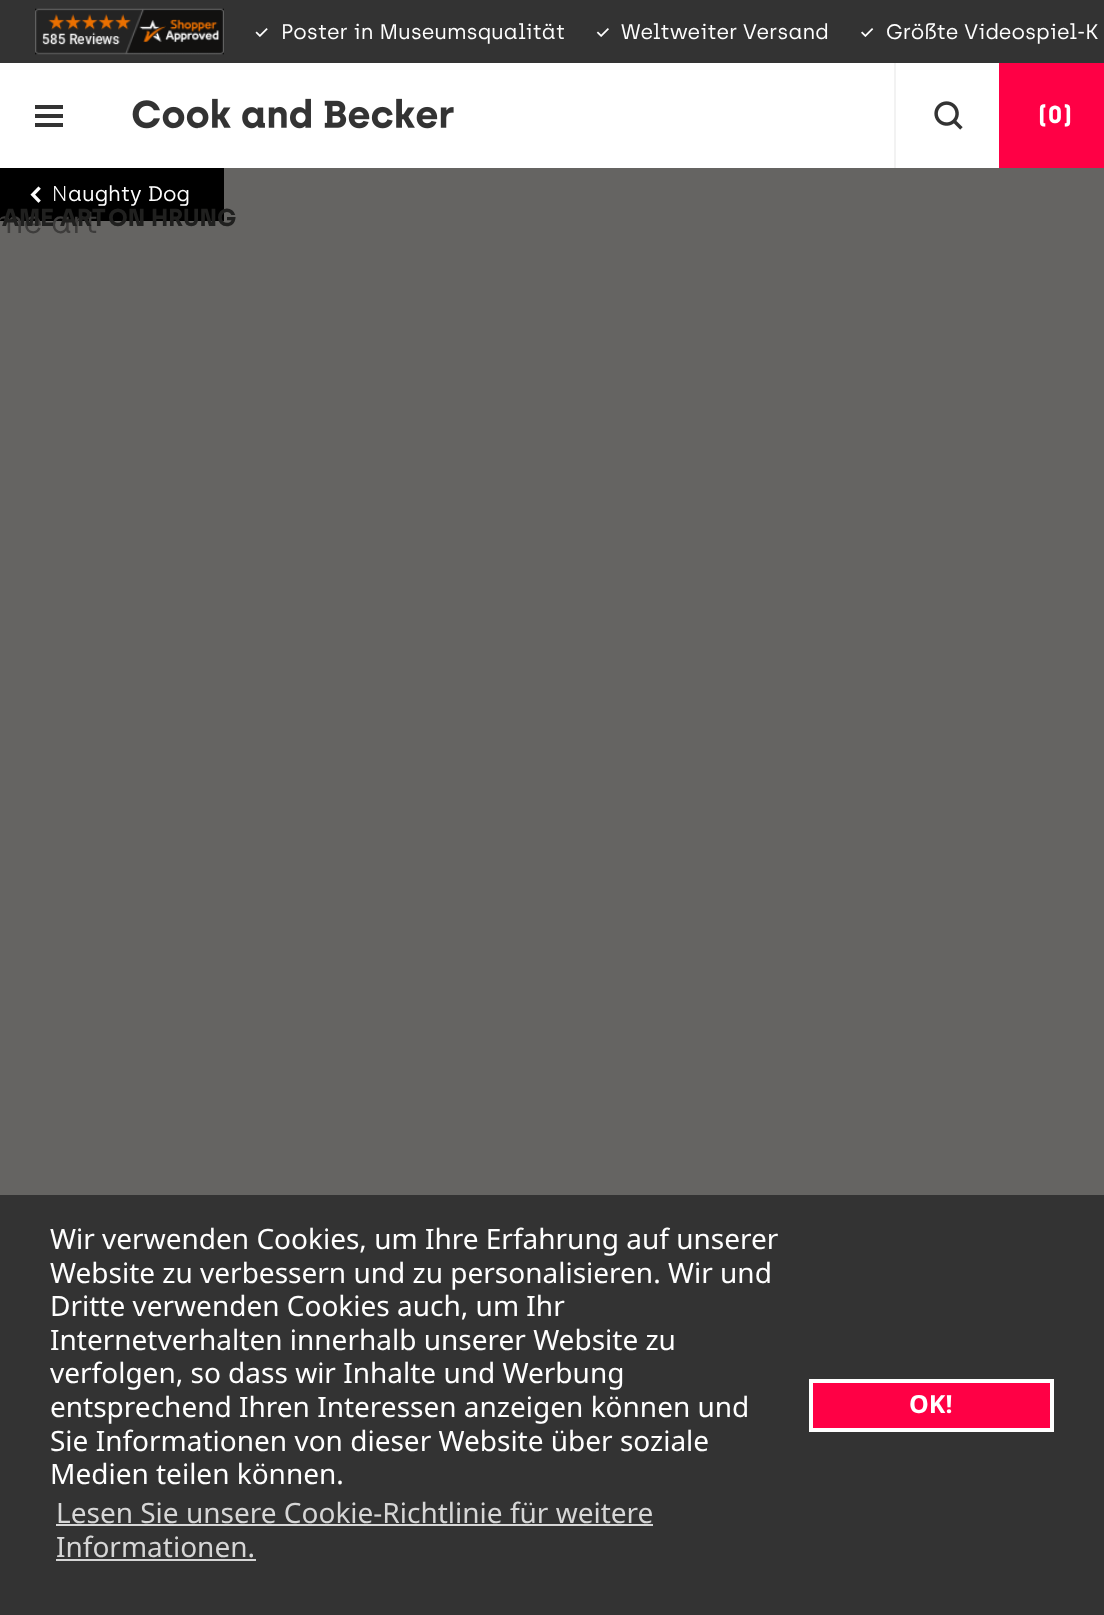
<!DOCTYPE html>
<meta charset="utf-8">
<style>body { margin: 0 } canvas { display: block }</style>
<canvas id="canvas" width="1104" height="1615"></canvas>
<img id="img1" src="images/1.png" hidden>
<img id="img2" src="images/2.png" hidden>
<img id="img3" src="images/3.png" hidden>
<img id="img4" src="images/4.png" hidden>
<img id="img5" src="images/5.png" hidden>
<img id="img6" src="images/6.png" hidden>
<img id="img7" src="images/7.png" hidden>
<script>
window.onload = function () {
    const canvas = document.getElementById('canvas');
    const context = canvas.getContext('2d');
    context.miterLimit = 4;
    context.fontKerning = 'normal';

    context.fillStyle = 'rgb(101, 100, 98)';
    context.fillRect(0, 0, 1104, 1615);
    context.fillStyle = 'rgb(51, 51, 51)';
    context.fillRect(0, 0, 1104, 63);
    context.drawImage(document.getElementById('img1'), 35, 8, 189, 47);
    context.drawImage(document.getElementById('img2'), 255, 28, 13, 9);
    context.drawImage(document.getElementById('img3'), 596, 28, 13, 9);
    context.drawImage(document.getElementById('img4'), 861, 28, 13, 9);
    context.fillStyle = 'rgb(255, 255, 255)';
    context.fillRect(0, 63, 999, 105);
    context.fillStyle = 'rgb(51, 51, 51)';
    context.fillRect(35, 105, 28, 4);
    context.fillRect(35, 114, 28, 4);
    context.fillRect(35, 123, 28, 4);
    context.drawImage(document.getElementById('img5'), 132, 98, 322, 31);
    context.fillStyle = 'rgb(242, 242, 242)';
    context.fillRect(894, 63, 2, 105);
    context.drawImage(document.getElementById('img6'), 934, 101, 29, 29);
    context.fillStyle = 'rgb(255, 0, 69)';
    context.fillRect(999, 63, 105, 105);
    context.fillStyle = 'rgb(0, 0, 0)';
    context.fillRect(0, 168, 224, 53);
    context.drawImage(document.getElementById('img7'), 30, 186, 11, 17);
    context.fillStyle = 'rgb(51, 51, 51)';
    context.fillRect(0, 1195, 1104, 420);
    context.fillStyle = 'rgb(214, 214, 214)';
    context.fillRect(56, 1524, 597, 2);
    context.fillRect(56, 1559, 200, 2);
    context.fillStyle = 'rgb(255, 0, 69)';
    context.beginPath();
    context.rect(811, 1381, 241, 49);
    context.fill();
    context.strokeStyle = 'rgb(255, 255, 255)';
    context.lineWidth = 4;
    context.stroke();
    context.font = '21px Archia';
    context.fillStyle = 'rgb(255, 255, 255)';
    context.fillText('Poster in Museumsqualität', 281, 39);
    context.fillText('Weltweiter Versand', 621, 39);
    context.fillText('Größte Videospiel-K', 886, 39);
    context.font = 'bold 24.5px Archia';
    context.fillText('(0)', 1038, 123);
    context.font = '31.5px Archia';
    context.fillStyle = 'rgb(61, 60, 59)';
    context.fillText('me art', -6, 233);
    context.font = 'bold 24.5px Archia';
    context.fillStyle = 'rgb(32, 32, 31)';
    context.fillText('AME ART', 2, 226);
    context.fillText('ON', 108, 226);
    context.fillText('HRUNG', 151, 226);
    context.font = '300 21px Noto Sans';
    context.fillStyle = 'rgb(255, 255, 255)';
    context.fillText('N', 52, 201);
    context.font = '21px Archia';
    context.fillText('aughty Dog', 68, 201);
    context.font = '28px Noto Sans';
    context.fillText('Wir verwenden Cookies, um Ihre Erfahrung auf unserer', 50, 1249);
    context.fillText('Website zu verbessern und zu personalisieren. Wir und', 50, 1283);
    context.fillText('Dritte verwenden Cookies auch, um Ihr', 50, 1316);
    context.fillText('Internetverhalten innerhalb unserer Website zu', 50, 1350);
    context.fillText('verfolgen, so dass wir Inhalte und Werbung', 50, 1383);
    context.fillText('entsprechend Ihren Interessen anzeigen können und', 50, 1417);
    context.fillText('Sie Informationen von dieser Website über soziale', 50, 1451);
    context.fillText('Medien teilen können.', 50, 1484);
    context.fillStyle = 'rgb(214, 214, 214)';
    context.fillText('Lesen Sie unsere Cookie-Richtlinie für weitere', 56, 1523);
    context.fillText('Informationen.', 56, 1557);
    context.font = 'bold 25px Noto Sans';
    context.fillStyle = 'rgb(255, 255, 255)';
    context.fillText('OK!', 909, 1413);
};
</script>
